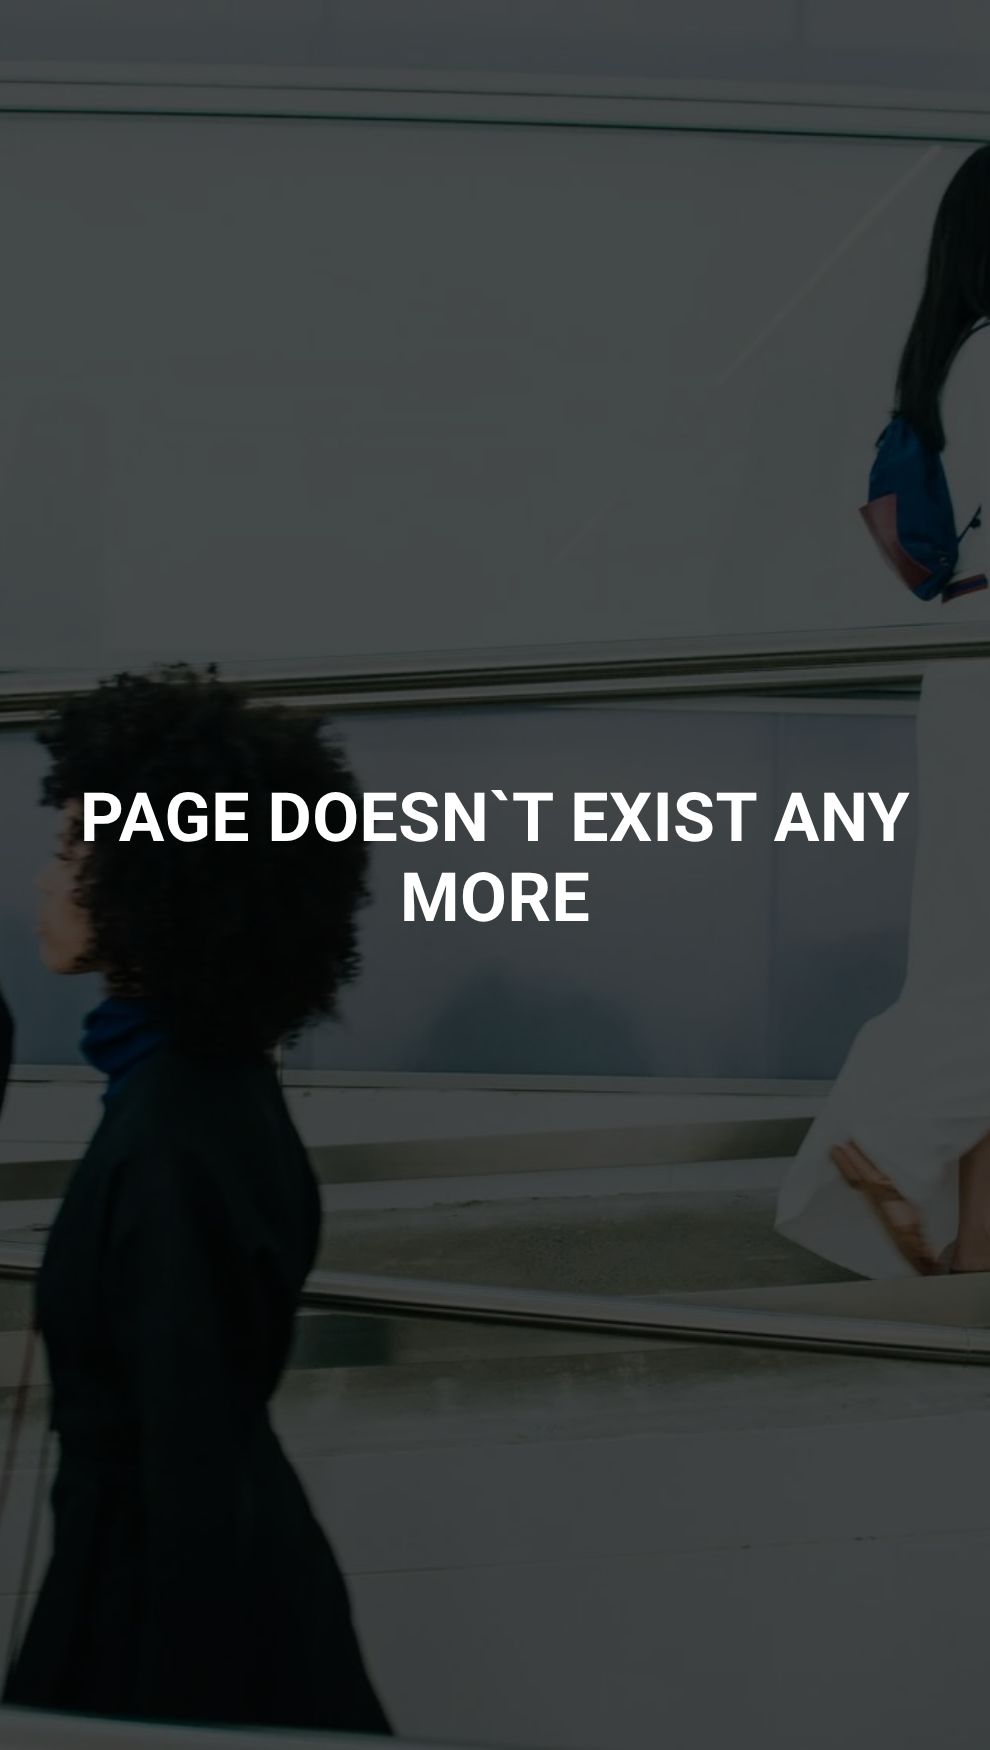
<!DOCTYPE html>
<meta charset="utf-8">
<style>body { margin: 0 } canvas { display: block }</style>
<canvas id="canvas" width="990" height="1750"></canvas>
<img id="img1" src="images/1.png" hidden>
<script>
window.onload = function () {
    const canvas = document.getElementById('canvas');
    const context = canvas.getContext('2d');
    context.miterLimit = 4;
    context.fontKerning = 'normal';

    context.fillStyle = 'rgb(255, 255, 255)';
    context.fillRect(0, 0, 990, 1750);
    context.drawImage(document.getElementById('img1'), 0, 0, 990, 1750);
    context.letterSpacing = '0.5px';
    context.font = 'bold 68px Roboto';
    context.fillText('PAGE DOESN`T EXIST ANY', 80, 841);
    context.fillText('MORE', 400, 921);
};
</script>
